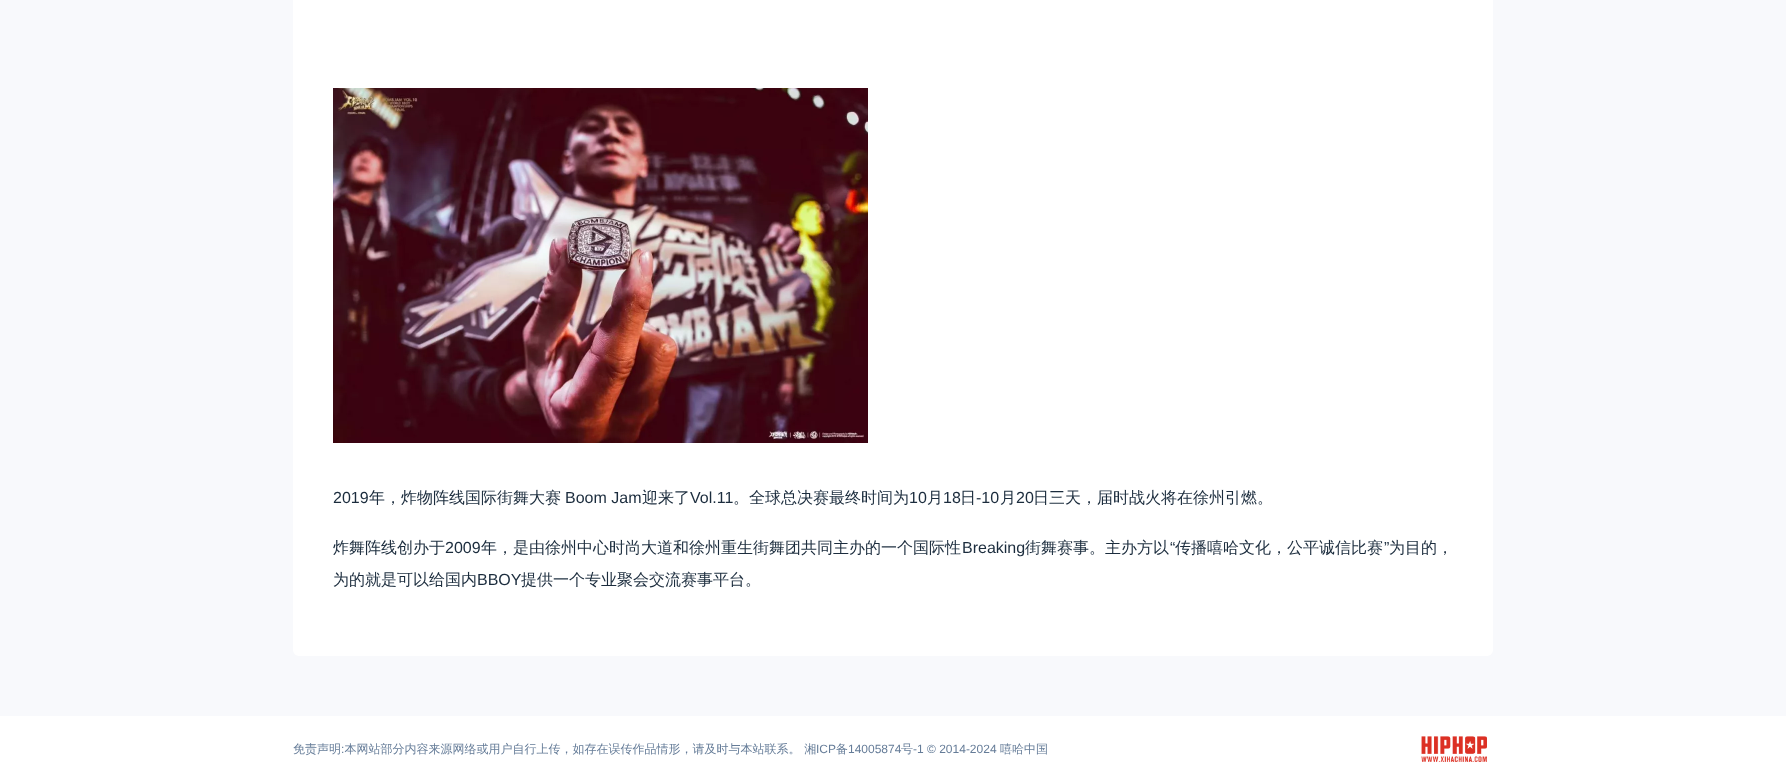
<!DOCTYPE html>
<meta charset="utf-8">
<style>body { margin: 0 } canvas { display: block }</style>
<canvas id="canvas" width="1786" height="782"></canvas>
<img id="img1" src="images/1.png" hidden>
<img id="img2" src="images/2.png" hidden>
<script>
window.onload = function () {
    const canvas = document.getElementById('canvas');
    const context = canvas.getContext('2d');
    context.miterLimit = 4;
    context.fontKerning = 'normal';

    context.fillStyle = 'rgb(248, 249, 252)';
    context.fillRect(0, 0, 1786, 782);
    context.fillStyle = 'rgb(255, 255, 255)';
    context.beginPath();
    context.roundRect(293, -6, 1200, 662, 6);
    context.fill();
    context.drawImage(document.getElementById('img1'), 333, 88, 535, 355);
    context.fillRect(0, 716, 1786, 66);
    context.drawImage(document.getElementById('img2'), 1421, 736, 66, 26);
    context.font = '16px Liberation Sans';
    context.fillStyle = 'rgb(27, 44, 61)';
    context.fillText('2019', 333, 503);
    context.font = '500 16px WenQuanYi Zen Hei';
    context.fillText('年，炸物阵线国际街舞大赛', 369, 503);
    context.font = '16px Liberation Sans';
    context.fillText('Boom Jam', 565, 503);
    context.font = '500 16px WenQuanYi Zen Hei';
    context.fillText('迎来了', 642, 503);
    context.font = '16px Liberation Sans';
    context.fillText('Vol.11', 690, 503);
    context.font = '500 16px WenQuanYi Zen Hei';
    context.fillText('。全球总决赛最终时间为', 733, 503);
    context.font = '16px Liberation Sans';
    context.fillText('10', 909, 503);
    context.font = '500 16px WenQuanYi Zen Hei';
    context.fillText('月', 927, 503);
    context.font = '16px Liberation Sans';
    context.fillText('18', 943, 503);
    context.font = '500 16px WenQuanYi Zen Hei';
    context.fillText('日', 960, 503);
    context.font = '16px Liberation Sans';
    context.fillText('-10', 976, 503);
    context.font = '500 16px WenQuanYi Zen Hei';
    context.fillText('月', 1000, 503);
    context.font = '16px Liberation Sans';
    context.fillText('20', 1016, 503);
    context.font = '500 16px WenQuanYi Zen Hei';
    context.fillText('日三天，届时战火将在徐州引燃。', 1033, 503);
    context.fillText('炸舞阵线创办于', 333, 553);
    context.font = '16px Liberation Sans';
    context.fillText('2009', 445, 553);
    context.font = '500 16px WenQuanYi Zen Hei';
    context.fillText('年，是由徐州中心时尚大道和徐州重生街舞团共同主办的一个国际性', 481, 553);
    context.font = '16px Liberation Sans';
    context.fillText('Breaking', 962, 553);
    context.font = '500 16px WenQuanYi Zen Hei';
    context.fillText('街舞赛事。主办方以', 1025, 553);
    context.font = '16px Liberation Sans';
    context.fillText('“', 1170, 553);
    context.font = '500 16px WenQuanYi Zen Hei';
    context.fillText('传播嘻哈文化，公平诚信比赛', 1175, 553);
    context.font = '16px Liberation Sans';
    context.fillText('”', 1384, 553);
    context.font = '500 16px WenQuanYi Zen Hei';
    context.fillText('为目的，', 1389, 553);
    context.fillText('为的就是可以给国内', 333, 585);
    context.font = '16px Liberation Sans';
    context.fillText('BBOY', 477, 585);
    context.font = '500 16px WenQuanYi Zen Hei';
    context.fillText('提供一个专业聚会交流赛事平台。', 521, 585);
    context.font = '500 12px WenQuanYi Zen Hei';
    context.fillStyle = 'rgb(101, 124, 152)';
    context.fillText('免责声明 本网站部分内容来源网络或用户自行上传，如存在误传作品情形，请及时与本站联系。 湘', 293, 753);
    context.font = '12px Liberation Sans';
    context.fillText('ICP', 816, 753);
    context.font = '500 12px WenQuanYi Zen Hei';
    context.fillText('备', 836, 753);
    context.font = '12px Liberation Sans';
    context.fillText('14005874', 848, 753);
    context.font = '500 12px WenQuanYi Zen Hei';
    context.fillText('号', 901, 753);
    context.font = '12px Liberation Sans';
    context.fillText('-1 © 2014-2024', 913, 753);
    context.font = '500 12px WenQuanYi Zen Hei';
    context.fillText('嘻哈中国', 1000, 753);
    context.font = '12px Liberation Sans';
    context.fillText(':', 341, 753);
};
</script>
